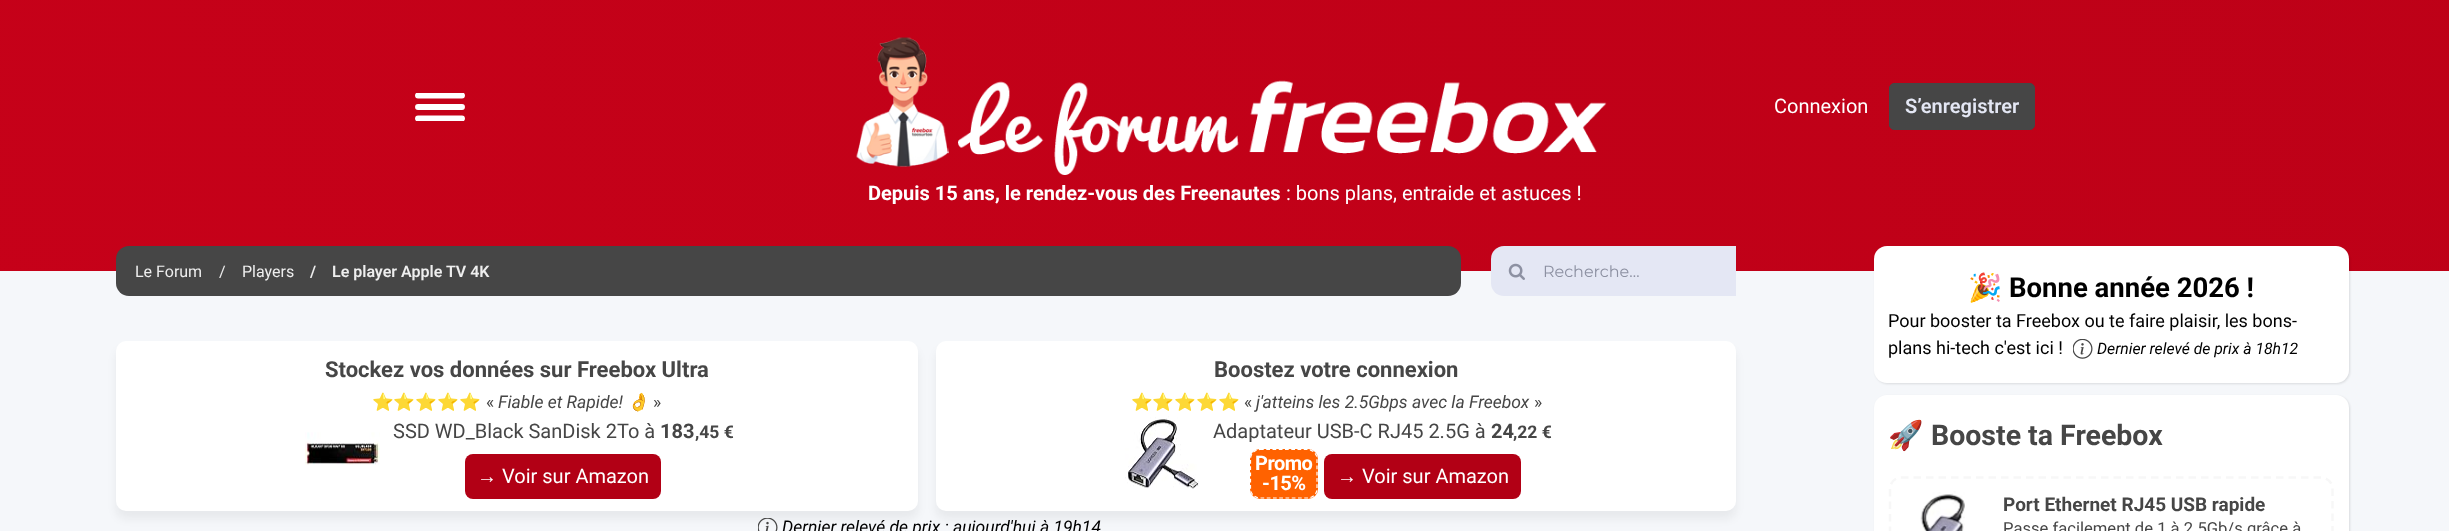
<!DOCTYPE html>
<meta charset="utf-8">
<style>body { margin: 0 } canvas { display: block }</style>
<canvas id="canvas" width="2449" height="531"></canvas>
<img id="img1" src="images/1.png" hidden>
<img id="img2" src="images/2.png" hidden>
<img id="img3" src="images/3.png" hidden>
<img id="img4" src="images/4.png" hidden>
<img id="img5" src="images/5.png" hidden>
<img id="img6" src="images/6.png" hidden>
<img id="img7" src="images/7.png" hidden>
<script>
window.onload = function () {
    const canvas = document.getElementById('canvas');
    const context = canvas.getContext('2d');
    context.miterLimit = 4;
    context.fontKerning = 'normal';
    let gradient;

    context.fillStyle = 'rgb(245, 247, 250)';
    context.fillRect(0, 0, 2449, 531);
    gradient = context.createLinearGradient(609, 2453, 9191, -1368);
    gradient.addColorStop(0, 'rgb(199, 1, 25)');
    gradient.addColorStop(1, 'rgb(167, 0, 20)');
    context.fillStyle = gradient;
    context.fillRect(0, 0, 2449, 271);
    context.save();
    context.beginPath();
    context.rect(415, 93, 50, 28);
    context.clip();
    context.beginPath();
    context.moveTo(418, 95.5);
    context.lineTo(462, 95.5);
    context.strokeStyle = 'rgb(255, 255, 255)';
    context.lineWidth = 5.9;
    context.lineCap = 'round';
    context.stroke();
    context.restore();
    context.beginPath();
    context.moveTo(418, 107);
    context.lineTo(462, 107);
    context.strokeStyle = 'rgb(255, 255, 255)';
    context.lineWidth = 5.9;
    context.lineCap = 'round';
    context.stroke();
    context.save();
    context.beginPath();
    context.rect(415, 93, 50, 28);
    context.clip();
    context.beginPath();
    context.moveTo(418, 118.5);
    context.lineTo(462, 118.5);
    context.stroke();
    context.restore();
    context.drawImage(document.getElementById('img1'), 856, 37, 751, 138);
    context.fillStyle = 'rgb(70, 70, 70)';
    context.beginPath();
    context.roundRect(1889.5, 83.5, 145, 46, 4.5);
    context.fill();
    context.strokeStyle = 'rgb(70, 70, 70)';
    context.lineWidth = 1;
    context.stroke();
    context.beginPath();
    context.roundRect(116, 246, 1345, 50, 13);
    context.fill();
    context.fillStyle = 'rgb(228, 231, 244)';
    context.beginPath();
    context.roundRect(1491, 246, 53, 50, [13, 0, 0, 13]);
    context.fill();
    context.drawImage(document.getElementById('img2'), 1508, 263, 17, 17);
    context.fillRect(1544, 246, 192, 50);
    context.fillStyle = 'rgba(23, 23, 23, 0.06)';
    context.filter = 'blur(4px)';
    context.beginPath();
    context.roundRect(116, 349, 802, 170, 10);
    context.fill();
    context.filter = 'none';
    context.fillStyle = 'rgb(255, 255, 255)';
    context.beginPath();
    context.roundRect(116, 341, 802, 170, 10);
    context.fill();
    context.drawImage(document.getElementById('img3'), 305, 432, 75, 33);
    context.fillStyle = 'rgb(178, 0, 21)';
    context.beginPath();
    context.roundRect(465, 454, 196, 45, 8);
    context.fill();
    context.fillStyle = 'rgba(23, 23, 23, 0.06)';
    context.filter = 'blur(4px)';
    context.beginPath();
    context.roundRect(936, 349, 800, 170, 10);
    context.fill();
    context.filter = 'none';
    context.fillStyle = 'rgb(255, 255, 255)';
    context.beginPath();
    context.roundRect(936, 341, 800, 170, 10);
    context.fill();
    context.drawImage(document.getElementById('img4'), 1125, 416, 74, 73);
    context.fillStyle = 'rgb(255, 98, 0)';
    context.beginPath();
    context.roundRect(1250, 449, 68, 50, 10);
    context.fill();
    context.beginPath();
    context.moveTo(1260, 449.5);
    context.lineTo(1307.5, 449.5);
    context.bezierCurveTo(1312.5, 449.5, 1317, 453.5, 1317, 459);
    context.lineTo(1317, 489);
    context.bezierCurveTo(1317, 494, 1312.5, 498, 1307.5, 498);
    context.lineTo(1260, 498);
    context.bezierCurveTo(1255, 498, 1250.5, 494, 1250.5, 489);
    context.lineTo(1250.5, 459);
    context.bezierCurveTo(1250.5, 453.5, 1255, 449.5, 1260, 449.5);
    context.closePath();
    context.strokeStyle = 'rgb(255, 255, 255)';
    context.lineWidth = 1.2;
    context.lineCap = 'butt';
    context.setLineDash([3.75, 2.5]);
    context.stroke();
    context.fillStyle = 'rgb(178, 0, 21)';
    context.beginPath();
    context.roundRect(1324, 454, 197, 45, 8);
    context.fill();
    context.drawImage(document.getElementById('img5'), 758, 518, 20, 13);
    context.fillStyle = 'rgba(0, 0, 0, 0.11)';
    context.filter = 'blur(1px)';
    context.beginPath();
    context.roundRect(1875, 248, 475, 136, 13);
    context.fill();
    context.filter = 'none';
    context.fillStyle = 'rgb(255, 255, 255)';
    context.beginPath();
    context.roundRect(1874, 246, 475, 137, 13);
    context.fill();
    context.drawImage(document.getElementById('img6'), 2073, 339, 20, 20);
    context.fillStyle = 'rgba(0, 0, 0, 0.11)';
    context.filter = 'blur(1px)';
    context.beginPath();
    context.roundRect(1875, 396, 475, 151, 13);
    context.fill();
    context.filter = 'none';
    context.fillStyle = 'rgb(255, 255, 255)';
    context.beginPath();
    context.roundRect(1874, 395, 475, 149, 13);
    context.fill();
    context.beginPath();
    context.moveTo(1901, 477.5);
    context.lineTo(2321, 477.5);
    context.bezierCurveTo(2327.5, 477.5, 2332.5, 482.5, 2332.5, 489);
    context.lineTo(2332.5, 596);
    context.bezierCurveTo(2332.5, 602.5, 2327.5, 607.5, 2321, 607.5);
    context.lineTo(1901, 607.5);
    context.bezierCurveTo(1895, 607.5, 1890, 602.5, 1890, 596);
    context.lineTo(1890, 489);
    context.bezierCurveTo(1890, 482.5, 1895, 477.5, 1901, 477.5);
    context.closePath();
    context.strokeStyle = 'rgb(247, 247, 247)';
    context.lineWidth = 2.5;
    context.setLineDash([7.5, 5]);
    context.stroke();
    context.drawImage(document.getElementById('img7'), 1920, 491, 45, 40);
    context.font = '20px Roboto';
    context.fillText('Connexion', 1774, 113);
    context.font = '600 20px Roboto';
    context.fillStyle = 'rgb(228, 231, 244)';
    context.fillText('S’enregistrer', 1905, 113);
    context.font = 'bold 20px Roboto';
    context.fillStyle = 'rgb(255, 255, 255)';
    context.fillText('Depuis 15 ans, le rendez-vous des Freenautes', 868, 200);
    context.font = '20px Roboto';
    context.fillText(': bons plans, entraide et astuces !', 1286, 200);
    context.font = '16px Roboto';
    context.fillStyle = 'rgb(238, 238, 238)';
    context.fillText('Le Forum', 135, 277);
    context.fillText('/', 219, 277);
    context.fillText('Players', 242, 277);
    context.font = '600 16px Roboto';
    context.fillText('/', 310, 277);
    context.fillText('Le player Apple TV 4K', 332, 277);
    context.font = '16px Montserrat';
    context.fillStyle = 'rgb(141, 145, 162)';
    context.fillText('Recherche…', 1543, 277);
    context.font = 'bold 22px Roboto';
    context.fillStyle = 'rgb(70, 70, 70)';
    context.fillText('Stockez vos données sur Freebox Ultra', 325, 377);
    context.font = '17.5px Noto Color Emoji';
    context.fillText('⭐⭐⭐⭐⭐', 372, 408);
    context.font = '17.5px Roboto';
    context.fillText('«', 486, 408);
    context.font = 'italic 17.5px Roboto';
    context.fillText('Fiable et Rapide!', 498, 408);
    context.font = 'italic 17.5px Noto Color Emoji';
    context.fillText('👌', 627, 408);
    context.font = '17.5px Roboto';
    context.fillText('»', 653, 408);
    context.font = '20px Roboto';
    context.fillText('SSD WD_Black SanDisk 2To à', 393, 438);
    context.font = 'bold 20px Roboto';
    context.fillText('183', 660, 438);
    context.font = 'bold 17.5px Roboto';
    context.fillText(',45 €', 695, 438);
    context.font = '20px Liberation Sans';
    context.fillStyle = 'rgb(255, 255, 255)';
    context.fillText('→', 477, 483);
    context.font = '20px Roboto';
    context.fillText('Voir sur Amazon', 502, 483);
    context.font = 'bold 22px Roboto';
    context.fillStyle = 'rgb(70, 70, 70)';
    context.fillText('Boostez votre connexion', 1214, 377);
    context.font = '17.5px Noto Color Emoji';
    context.fillText('⭐⭐⭐⭐⭐', 1131, 408);
    context.font = '17.5px Roboto';
    context.fillText('«', 1244, 408);
    context.font = 'italic 17.5px Roboto';
    context.fillText('j\'atteins les 2.5Gbps avec la Freebox', 1256, 408);
    context.font = '17.5px Roboto';
    context.fillText('»', 1534, 408);
    context.font = '20px Roboto';
    context.fillText('Adaptateur USB-C RJ45 2.5G à', 1213, 438);
    context.font = 'bold 20px Roboto';
    context.fillText('24', 1491, 438);
    context.font = 'bold 17.5px Roboto';
    context.fillText(',22 €', 1513, 438);
    context.letterSpacing = '-0.5px';
    context.font = 'bold 20px Roboto';
    context.fillStyle = 'rgb(255, 255, 255)';
    context.fillText('Promo', 1255, 470);
    context.fillText('-15%', 1262, 490);
    context.letterSpacing = '0px';
    context.font = '20px Liberation Sans';
    context.fillText('→', 1337, 483);
    context.font = '20px Roboto';
    context.fillText('Voir sur Amazon', 1362, 483);
    context.font = 'italic 17.5px Roboto';
    context.fillStyle = 'rgb(0, 0, 0)';
    context.fillText('Dernier relevé de prix : aujourd\'hui à 19h14', 782, 533);
    context.font = 'bold 27.5px Noto Color Emoji';
    context.fillText('🎉', 1968, 297);
    context.font = 'bold 27.5px Roboto';
    context.fillText('Bonne année 2026 !', 2009, 297);
    context.font = '18px Roboto';
    context.fillText('Pour booster ta Freebox ou te faire plaisir, les bons-', 1888, 327);
    context.fillText('plans hi-tech c\'est ici !', 1888, 354);
    context.font = 'italic 15.75px Roboto';
    context.fillText('Dernier relevé de prix à 18h12', 2097, 354);
    context.font = 'bold 28.5px Noto Color Emoji';
    context.fillStyle = 'rgb(70, 70, 70)';
    context.fillText('🚀', 1888, 445);
    context.font = 'bold 28.5px Roboto';
    context.fillText('Booste ta Freebox', 1931, 445);
    context.font = 'bold 19px Roboto';
    context.fillText('Port Ethernet RJ45 USB rapide', 2003, 511);
    context.font = '16.6px Roboto';
    context.fillText('Passe facilement de 1 à 2.5Gb/s grâce à', 2003, 534);
};
</script>
